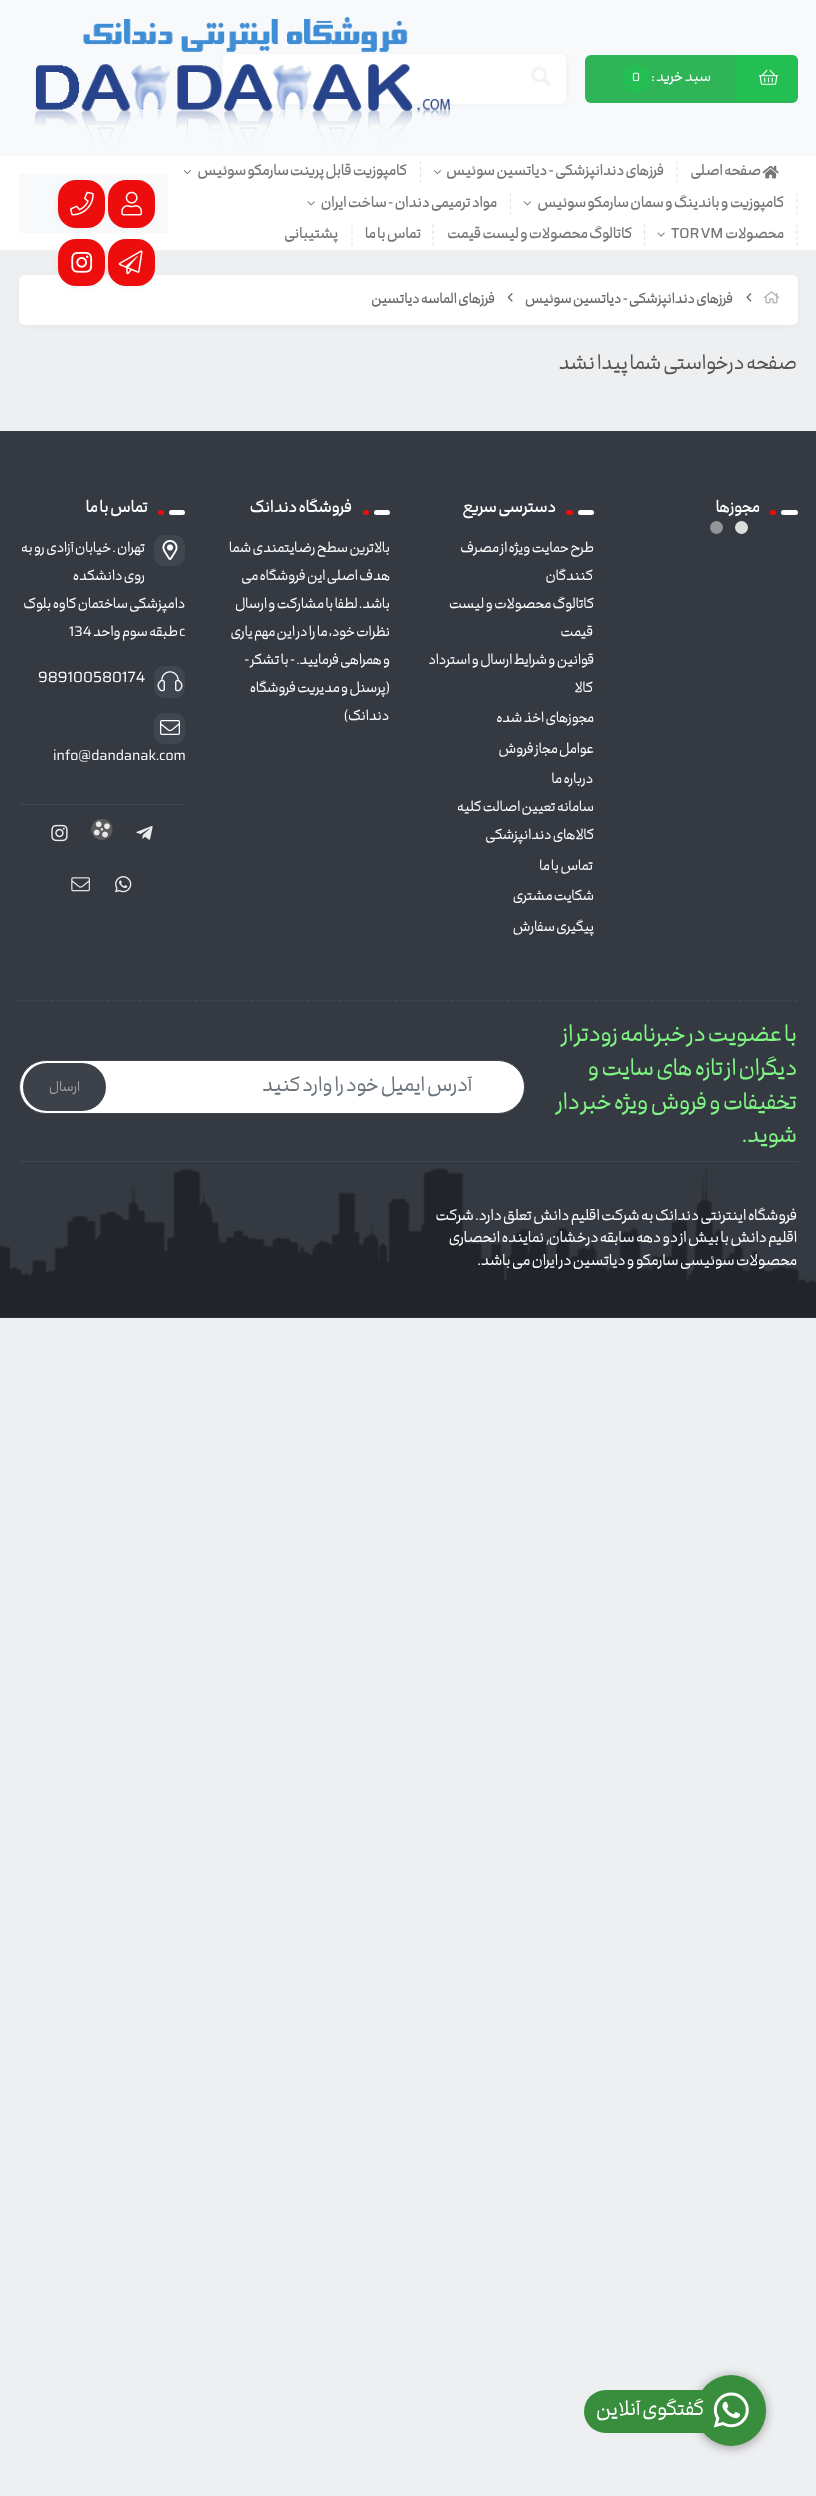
<!DOCTYPE html>
<meta charset="utf-8">
<style>body { margin: 0 } canvas { display: block }</style>
<canvas id="canvas" width="816" height="2496"></canvas>
<img id="img1" src="images/1.png" hidden>
<img id="img2" src="images/2.png" hidden>
<img id="img3" src="images/3.png" hidden>
<img id="img4" src="images/4.png" hidden>
<img id="img5" src="images/5.png" hidden>
<img id="img6" src="images/6.png" hidden>
<img id="img7" src="images/7.png" hidden>
<img id="img8" src="images/8.png" hidden>
<img id="img9" src="images/9.png" hidden>
<img id="img10" src="images/10.png" hidden>
<img id="img11" src="images/11.png" hidden>
<img id="img12" src="images/12.png" hidden>
<img id="img13" src="images/13.png" hidden>
<img id="img14" src="images/14.png" hidden>
<img id="img15" src="images/15.png" hidden>
<img id="img16" src="images/16.png" hidden>
<img id="img17" src="images/17.png" hidden>
<img id="img18" src="images/18.png" hidden>
<img id="img19" src="images/19.png" hidden>
<img id="img20" src="images/20.png" hidden>
<img id="img21" src="images/21.png" hidden>
<img id="img22" src="images/22.png" hidden>
<img id="img23" src="images/23.png" hidden>
<img id="img24" src="images/24.png" hidden>
<img id="img25" src="images/25.png" hidden>
<script>
window.onload = function () {
    const canvas = document.getElementById('canvas');
    const context = canvas.getContext('2d');
    context.miterLimit = 4;
    context.fontKerning = 'normal';

    context.fillStyle = 'rgb(238, 239, 241)';
    context.fillRect(0, 0, 816, 2496);
    context.fillStyle = 'rgb(248, 249, 250)';
    context.fillRect(0, 0, 816, 156);
    context.fillStyle = 'rgb(47, 181, 88)';
    context.beginPath();
    context.roundRect(585, 55, 213, 48, 6);
    context.fill();
    context.fillStyle = 'rgb(35, 191, 83)';
    context.beginPath();
    context.roundRect(735, 55, 63, 46, [0, 6, 6, 0]);
    context.fill();
    context.drawImage(document.getElementById('img1'), 758, 69, 21, 16);
    context.beginPath();
    context.roundRect(623, 65, 27, 28, 13.5);
    context.fill();
    context.fillStyle = 'rgba(0, 0, 0, 0.1)';
    context.filter = 'blur(4.5px)';
    context.beginPath();
    context.rect(226, 59, 337, 42);
    context.fill();
    context.filter = 'none';
    context.fillStyle = 'rgb(255, 255, 255)';
    context.beginPath();
    context.roundRect(223, 54, 343, 50, 6);
    context.fill();
    context.drawImage(document.getElementById('img2'), 531, 66, 20, 20);
    context.drawImage(document.getElementById('img3'), 35, 17, 415, 129);
    context.fillRect(0, 156, 816, 94);
    context.drawImage(document.getElementById('img4'), 762, 165, 17, 14);
    context.beginPath();
    context.moveTo(677, 161);
    context.lineTo(677, 184);
    context.strokeStyle = 'rgb(230, 230, 230)';
    context.lineWidth = 1.2;
    context.setLineDash([3.75, 2.5]);
    context.stroke();
    context.drawImage(document.getElementById('img5'), 433, 170, 8, 5);
    context.beginPath();
    context.moveTo(420.5, 161);
    context.lineTo(420.5, 184);
    context.stroke();
    context.drawImage(document.getElementById('img5'), 183, 170, 8, 5);
    context.beginPath();
    context.moveTo(797, 192.5);
    context.lineTo(797, 215);
    context.stroke();
    context.drawImage(document.getElementById('img6'), 523, 201, 8, 5);
    context.beginPath();
    context.moveTo(510.5, 192.5);
    context.lineTo(510.5, 215);
    context.stroke();
    context.drawImage(document.getElementById('img7'), 307, 201, 8, 5);
    context.beginPath();
    context.moveTo(797, 224);
    context.lineTo(797, 246);
    context.stroke();
    context.drawImage(document.getElementById('img8'), 657, 232, 8, 5);
    context.beginPath();
    context.moveTo(644.5, 224);
    context.lineTo(644.5, 246);
    context.stroke();
    context.beginPath();
    context.moveTo(433, 224);
    context.lineTo(433, 246);
    context.stroke();
    context.beginPath();
    context.moveTo(352, 224);
    context.lineTo(352, 246);
    context.stroke();
    context.fillStyle = 'rgb(248, 249, 250)';
    context.fillRect(19, 174, 149, 59);
    context.fillStyle = 'rgba(0, 0, 0, 0.1)';
    context.filter = 'blur(4.5px)';
    context.beginPath();
    context.roundRect(111, 185, 40, 40, 14);
    context.fill();
    context.filter = 'none';
    context.fillStyle = 'rgb(238, 13, 13)';
    context.beginPath();
    context.roundRect(108, 180, 47, 48, 18);
    context.fill();
    context.drawImage(document.getElementById('img9'), 121, 191, 22, 25);
    context.fillStyle = 'rgba(0, 0, 0, 0.1)';
    context.filter = 'blur(4.5px)';
    context.beginPath();
    context.roundRect(61, 185, 40, 40, 14);
    context.fill();
    context.filter = 'none';
    context.fillStyle = 'rgb(238, 13, 13)';
    context.beginPath();
    context.roundRect(58, 180, 47, 48, 18);
    context.fill();
    context.drawImage(document.getElementById('img10'), 70, 191, 24, 25);
    context.fillStyle = 'rgba(0, 0, 0, 0.1)';
    context.filter = 'blur(4.5px)';
    context.beginPath();
    context.roundRect(23, 280, 771, 43, 2.5);
    context.fill();
    context.filter = 'none';
    context.fillStyle = 'rgb(255, 255, 255)';
    context.beginPath();
    context.roundRect(19, 275, 779, 50, 6);
    context.fill();
    context.fillStyle = 'rgba(0, 0, 0, 0.1)';
    context.filter = 'blur(4.5px)';
    context.beginPath();
    context.roundRect(111, 244, 40, 40, 14);
    context.fill();
    context.filter = 'none';
    context.fillStyle = 'rgb(238, 13, 13)';
    context.beginPath();
    context.roundRect(108, 239, 47, 47, 18);
    context.fill();
    context.drawImage(document.getElementById('img11'), 118, 250, 25, 25);
    context.fillStyle = 'rgba(0, 0, 0, 0.1)';
    context.filter = 'blur(4.5px)';
    context.beginPath();
    context.roundRect(61, 244, 40, 40, 14);
    context.fill();
    context.filter = 'none';
    context.fillStyle = 'rgb(238, 13, 13)';
    context.beginPath();
    context.roundRect(58, 239, 47, 47, 18);
    context.fill();
    context.drawImage(document.getElementById('img12'), 71, 251, 22, 22);
    context.drawImage(document.getElementById('img13'), 763, 291, 17, 13);
    context.drawImage(document.getElementById('img14'), 746, 293, 6, 9);
    context.drawImage(document.getElementById('img15'), 507, 293, 6, 9);
    context.fillStyle = 'rgb(53, 58, 66)';
    context.fillRect(0, 431, 816, 887);
    context.drawImage(document.getElementById('img16'), 0, 1168, 816, 150);
    context.fillStyle = 'rgb(255, 255, 255)';
    context.beginPath();
    context.roundRect(781, 510, 17, 5, 2.5);
    context.fill();
    context.fillStyle = 'rgb(238, 13, 13)';
    context.beginPath();
    context.roundRect(770, 510, 6, 5, 2.5);
    context.fill();
    context.fillStyle = 'rgb(221, 221, 221)';
    context.beginPath();
    context.arc(741.5, 527.5, 6.5, 0, 2 * Math.PI);
    context.fill();
    context.fillStyle = 'rgb(147, 149, 153)';
    context.beginPath();
    context.arc(716.5, 527.5, 6.5, 0, 2 * Math.PI);
    context.fill();
    context.fillStyle = 'rgb(255, 255, 255)';
    context.beginPath();
    context.roundRect(578, 510, 16, 5, 2.5);
    context.fill();
    context.fillStyle = 'rgb(238, 13, 13)';
    context.beginPath();
    context.roundRect(566, 510, 7, 5, 2.5);
    context.fill();
    context.fillStyle = 'rgb(255, 255, 255)';
    context.beginPath();
    context.roundRect(374, 510, 16, 5, 2.5);
    context.fill();
    context.fillStyle = 'rgb(238, 13, 13)';
    context.beginPath();
    context.roundRect(363, 510, 6, 5, 2.5);
    context.fill();
    context.fillStyle = 'rgb(255, 255, 255)';
    context.beginPath();
    context.roundRect(169, 510, 16, 5, 2.5);
    context.fill();
    context.fillStyle = 'rgb(238, 13, 13)';
    context.beginPath();
    context.roundRect(158, 510, 6, 5, 2.5);
    context.fill();
    context.fillStyle = 'rgb(64, 70, 80)';
    context.beginPath();
    context.roundRect(154, 535, 31, 31, 10);
    context.fill();
    context.drawImage(document.getElementById('img17'), 162, 540, 16, 20);
    context.beginPath();
    context.roundRect(154, 666, 31, 32, 10);
    context.fill();
    context.drawImage(document.getElementById('img18'), 157, 671, 26, 21);
    context.beginPath();
    context.roundRect(154, 713, 31, 31, 10);
    context.fill();
    context.drawImage(document.getElementById('img19'), 160, 720, 20, 15);
    context.fillRect(19, 804, 166, 1);
    context.drawImage(document.getElementById('img20'), 136, 826, 17, 14);
    context.drawImage(document.getElementById('img21'), 91, 819, 22, 21);
    context.drawImage(document.getElementById('img22'), 51, 824, 17, 18);
    context.drawImage(document.getElementById('img23'), 115, 876, 17, 17);
    context.drawImage(document.getElementById('img24'), 71, 877, 19, 15);
    context.beginPath();
    context.moveTo(19, 1000.5);
    context.lineTo(797.5, 1000.5);
    context.strokeStyle = 'rgb(64, 70, 80)';
    context.stroke();
    context.fillStyle = 'rgb(255, 255, 255)';
    context.beginPath();
    context.roundRect(19.5, 1060.5, 505, 53, 26.5);
    context.fill();
    context.lineWidth = 1;
    context.setLineDash([]);
    context.stroke();
    context.fillStyle = 'rgb(60, 65, 74)';
    context.beginPath();
    context.roundRect(23, 1063, 83, 48, 24);
    context.fill();
    context.fillStyle = 'rgb(64, 70, 80)';
    context.fillRect(19, 1161, 779, 1);
    context.fillStyle = 'rgba(0, 0, 0, 0.15)';
    context.filter = 'blur(6px)';
    context.beginPath();
    context.roundRect(696, 2376, 70, 72, 35);
    context.fill();
    context.filter = 'none';
    context.fillStyle = 'rgba(0, 0, 0, 0.2)';
    context.filter = 'blur(4px)';
    context.beginPath();
    context.roundRect(696, 2376, 70, 72, 35);
    context.fill();
    context.filter = 'none';
    context.fillStyle = 'rgb(56, 142, 60)';
    context.beginPath();
    context.roundRect(696, 2375, 70, 71, 35);
    context.fill();
    context.drawImage(document.getElementById('img25'), 713, 2392, 36, 36);
    context.beginPath();
    context.roundRect(584, 2390, 120, 43, [21.5, 0, 0, 21.5]);
    context.fill();
    context.direction = 'rtl';
    context.font = '14.4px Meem';
    context.fillStyle = 'rgb(255, 255, 255)';
    context.fillText('سبد خرید :', 711, 81);
    context.direction = 'ltr';
    context.font = '12px Meem';
    context.fillText('0', 632, 81);
    context.direction = 'rtl';
    context.font = '500 14.4px Meem';
    context.fillStyle = 'rgb(119, 119, 119)';
    context.fillText('صفحه اصلی', 761, 175);
    context.fillText('فرزهای دندانپزشکی - دیاتسین سوئیس', 664, 175);
    context.fillText('کامپوزیت قابل پرینت', 407, 175);
    context.fillText('سارمکو سوئیس', 289, 175);
    context.fillText('کامپوزیت و باندینگ و سمان', 784, 207);
    context.fillText('سارمکو سوئیس', 629, 207);
    context.fillText('مواد ترمیمی دندان - ساخت ایران', 497, 207);
    context.fillText('محصولات', 784, 238);
    context.direction = 'ltr';
    context.fillText('TOR VM', 671, 238);
    context.direction = 'rtl';
    context.fillText('کاتالوگ محصولات و لیست قیمت', 632, 238);
    context.fillText('تماس با ما', 421, 238);
    context.fillText('پشتیبانی', 338, 238);
    context.font = '500 13.75px Meem';
    context.fillStyle = 'rgb(107, 107, 107)';
    context.fillText('فرزهای دندانپزشکی - دیاتسین سوئیس', 733, 303);
    context.fillText('فرزهای الماسه دیاتسین', 495, 303);
    context.font = '20px Meem';
    context.fillStyle = 'rgb(85, 85, 85)';
    context.fillText('صفحه درخواستی شما پیدا نشد', 797, 369);
    context.font = '500 16px Meem';
    context.fillStyle = 'rgb(255, 255, 255)';
    context.fillText('مجوزها', 760, 512);
    context.fillText('دسترسی سریع', 556, 512);
    context.font = '14px Meem';
    context.fillText('طرح حمایت ویژه از مصرف', 594, 552);
    context.fillText('کنندگان', 593, 580);
    context.fillText('کاتالوگ محصولات و لیست', 594, 608);
    context.fillText('قیمت', 593, 636);
    context.fillText('قوانین و شرایط ارسال و استرداد', 594, 664);
    context.fillText('کالا', 593, 692);
    context.fillText('مجوزهای اخذ شده', 594, 722);
    context.fillText('عوامل مجاز فروش', 594, 753);
    context.fillText('درباره ما', 593, 783);
    context.fillText('سامانه تعیین اصالت کلیه', 594, 811);
    context.fillText('کالاهای دندانپزشکی', 594, 839);
    context.fillText('تماس با ما', 593, 870);
    context.fillText('شکایت مشتری', 594, 900);
    context.fillText('پیگیری سفارش', 594, 931);
    context.font = '500 16px Meem';
    context.fillText('فروشگاه دندانک', 352, 512);
    context.font = '14px Meem';
    context.fillText('بالاترین سطح رضایتمندی شما', 390, 552);
    context.fillText('هدف اصلی این فروشگاه می', 390, 580);
    context.fillText('باشد. لطفا با مشارکت و ارسال', 390, 608);
    context.fillText('نظرات خود، ما را در این مهم یاری', 390, 636);
    context.fillText('و همراهی فرمایید. - با تشکر -', 390, 664);
    context.fillText('(پرسنل و مدیریت فروشگاه', 390, 692);
    context.fillText('دندانک)', 389, 720);
    context.font = '500 16px Meem';
    context.fillText('تماس با ما', 148, 512);
    context.font = '14px Meem';
    context.fillText('تهران . خیابان آزادی رو به', 145, 552);
    context.fillText('روی دانشکده', 145, 580);
    context.fillText('دامپزشکی', 185, 608);
    context.fillText('ساختمان کاوه بلوک', 128, 608);
    context.direction = 'ltr';
    context.fillText('c', 179, 636);
    context.direction = 'rtl';
    context.fillText('طبقه سوم واحد', 178, 636);
    context.direction = 'ltr';
    context.fillText('134', 69, 636);
    context.font = '14.75px Meem';
    context.fillText('989100580174', 38, 682);
    context.font = '14px Meem';
    context.fillText('info@dandanak.com', 53, 760);
    context.direction = 'rtl';
    context.font = '22.5px Meem';
    context.fillStyle = 'rgb(127, 245, 131)';
    context.fillText('با عضویت در خبرنامه زودتر از', 797, 1041);
    context.fillText('دیگران از تازه های سایت و', 797, 1075);
    context.fillText('تخفیفات و فروش ویژه خبر دار', 797, 1109);
    context.fillText('شوید.', 797, 1142);
    context.font = '20px Meem';
    context.fillStyle = 'rgb(108, 117, 125)';
    context.fillText('آدرس ایمیل خود را وارد کنید', 472, 1091);
    context.font = '13.5px Meem';
    context.fillStyle = 'rgb(163, 160, 160)';
    context.fillText('ارسال', 80, 1091);
    context.font = '15px Meem';
    context.fillStyle = 'rgb(255, 255, 255)';
    context.fillText('فروشگاه اینترنتی دندانک به شرکت اقلیم دانش تعلق دارد. شرکت', 797, 1220);
    context.fillText('اقلیم دانش با بیش از دو دهه سابقه درخشان', 797, 1242);
    context.direction = 'ltr';
    context.fillText('٬', 546, 1242);
    context.direction = 'rtl';
    context.fillText('نماینده انحصاری', 544, 1242);
    context.fillText('محصولات سوئیسی سارمکو و دیاتسین در ایران می باشد.', 797, 1265);
    context.font = '20px Meem';
    context.fillText('گفتگوی آنلاین', 704, 2415);
};
</script>
